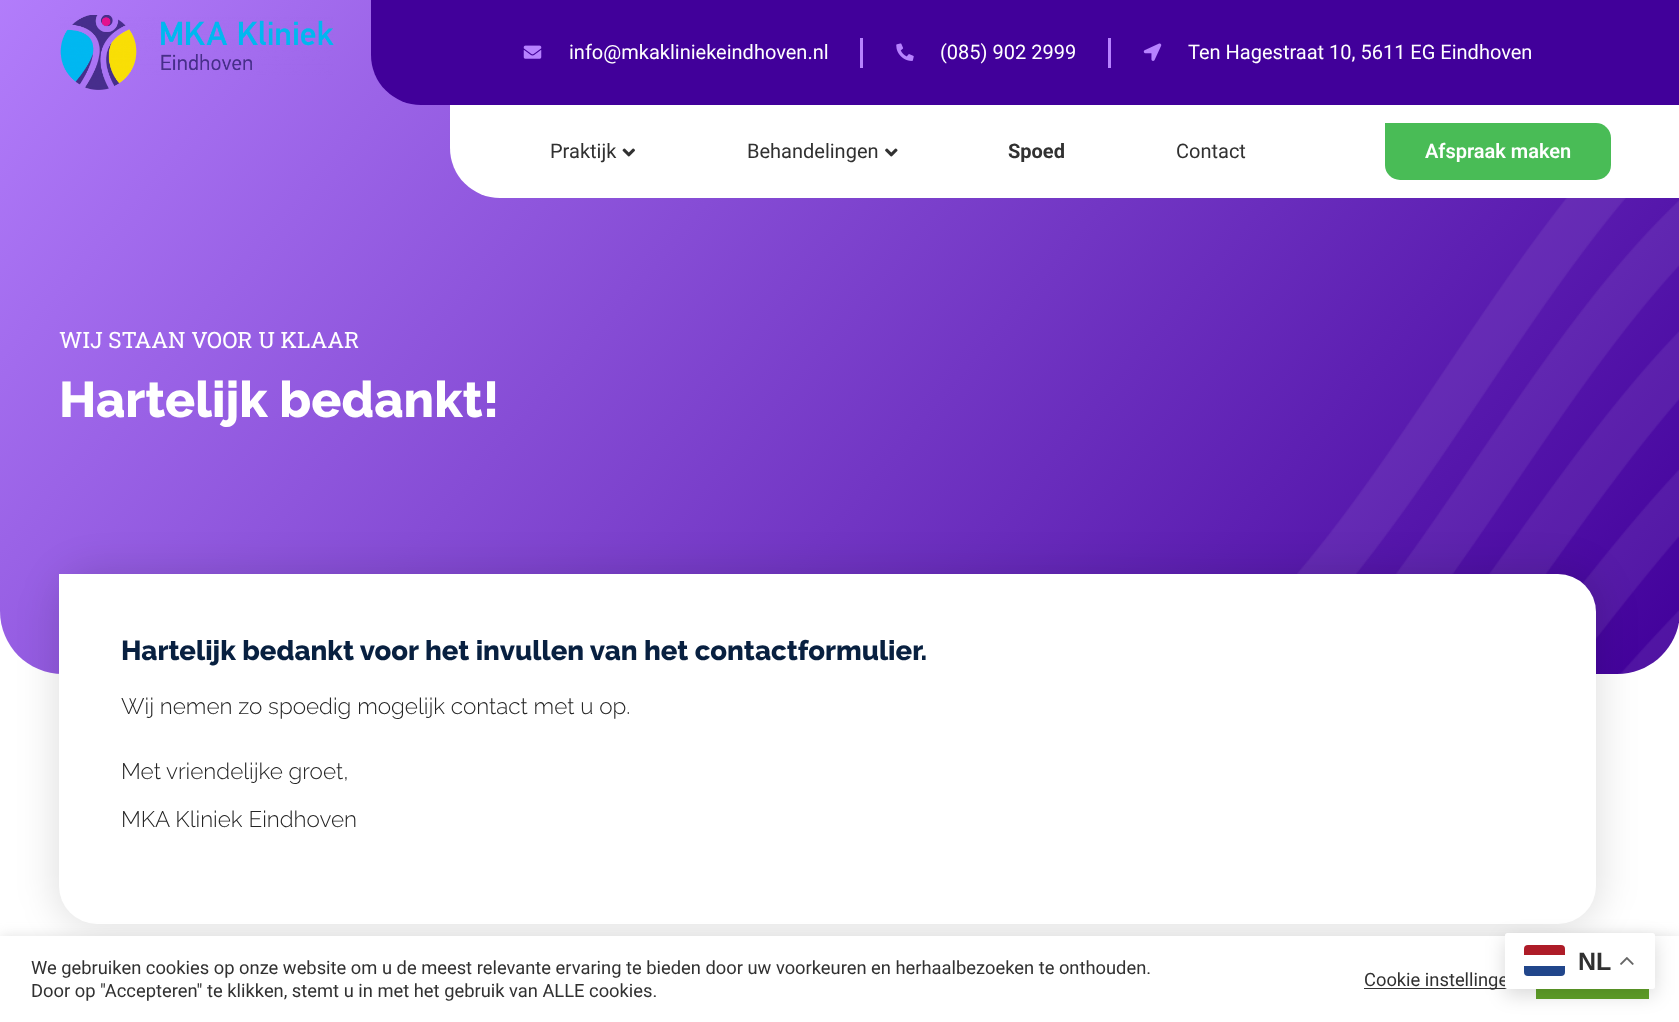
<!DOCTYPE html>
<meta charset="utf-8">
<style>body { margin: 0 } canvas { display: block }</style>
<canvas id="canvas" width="1679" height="1022"></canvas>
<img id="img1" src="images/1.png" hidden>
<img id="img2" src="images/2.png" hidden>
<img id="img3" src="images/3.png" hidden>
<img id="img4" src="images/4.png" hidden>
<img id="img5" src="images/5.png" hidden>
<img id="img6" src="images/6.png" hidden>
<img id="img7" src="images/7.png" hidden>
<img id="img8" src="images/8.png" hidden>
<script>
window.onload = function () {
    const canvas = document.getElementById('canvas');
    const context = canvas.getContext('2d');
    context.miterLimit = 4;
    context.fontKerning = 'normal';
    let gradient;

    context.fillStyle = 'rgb(255, 255, 255)';
    context.fillRect(0, 0, 1679, 1022);
    gradient = context.createLinearGradient(153, -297, 1527, 856);
    gradient.addColorStop(0, 'rgb(183, 130, 255)');
    gradient.addColorStop(1, 'rgb(65, 0, 154)');
    context.fillStyle = gradient;
    context.beginPath();
    context.moveTo(0, -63);
    context.lineTo(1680, -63);
    context.lineTo(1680, 611);
    context.bezierCurveTo(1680, 646, 1652, 674, 1617, 674);
    context.lineTo(63, 674);
    context.bezierCurveTo(28, 674, 0, 646, 0, 611);
    context.closePath();
    context.fill();
    context.fillStyle = 'rgb(65, 0, 154)';
    context.fillRect(1621, 0, 58, 105);
    context.drawImage(document.getElementById('img1'), 60, 15, 274, 75);
    context.beginPath();
    context.roundRect(371, 0, 1250, 105, [0, 0, 0, 50]);
    context.fill();
    context.drawImage(document.getElementById('img2'), 523, 45, 19, 14);
    context.fillStyle = 'rgb(183, 130, 255)';
    context.fillRect(860, 38, 3, 30);
    context.drawImage(document.getElementById('img3'), 896, 43, 18, 18);
    context.fillRect(1108, 38, 3, 30);
    context.drawImage(document.getElementById('img4'), 1143, 43, 19, 18);
    context.fillStyle = 'rgb(255, 255, 255)';
    context.fillRect(1385, 105, 294, 93);
    context.beginPath();
    context.roundRect(450, 105, 935, 93, [0, 0, 0, 50]);
    context.fill();
    context.drawImage(document.getElementById('img5'), 622, 148, 13, 9);
    context.drawImage(document.getElementById('img6'), 885, 148, 13, 9);
    context.fillStyle = 'rgb(73, 188, 86)';
    context.beginPath();
    context.roundRect(1385, 123, 226, 57, [0, 15, 15, 15]);
    context.fill();
    context.drawImage(document.getElementById('img7'), 1297, 198, 382, 476);
    context.fillStyle = 'rgba(0, 0, 0, 0.12)';
    context.filter = 'blur(19px)';
    context.beginPath();
    context.roundRect(55, 570, 1545, 358, 41);
    context.fill();
    context.filter = 'none';
    context.fillStyle = 'rgb(255, 255, 255)';
    context.beginPath();
    context.roundRect(59, 574, 1537, 350, [0, 38, 38, 38]);
    context.fill();
    context.fillStyle = 'rgba(172, 171, 171, 0.3)';
    context.filter = 'blur(6px)';
    context.beginPath();
    context.rect(0, 935, 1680, 86);
    context.fill();
    context.filter = 'none';
    context.fillStyle = 'rgb(255, 255, 255)';
    context.fillRect(0, 936, 1679, 86);
    context.fillStyle = 'rgb(51, 51, 51)';
    context.fillRect(1364, 988, 144, 1);
    context.fillStyle = 'rgb(97, 162, 41)';
    context.fillRect(1536, 989, 113, 10);
    context.fillStyle = 'rgba(0, 0, 0, 0.15)';
    context.filter = 'blur(9.5px)';
    context.beginPath();
    context.roundRect(1505, 939, 150, 56, 2.5);
    context.fill();
    context.filter = 'none';
    context.font = '20px Roboto';
    context.fillStyle = 'rgb(255, 255, 255)';
    context.fillText('info@mkakliniekeindhoven.nl', 569, 59);
    context.fillText('(085) 902 2999', 940, 59);
    context.fillText('Ten Hagestraat 10, 5611 EG Eindhoven', 1188, 59);
    context.fillStyle = 'rgb(49, 49, 49)';
    context.fillText('Praktijk', 550, 158);
    context.fillText('Behandelingen', 747, 158);
    context.font = 'bold 20px Roboto';
    context.fillText('Spoed', 1008, 158);
    context.font = '20px Roboto';
    context.fillText('Contact', 1176, 158);
    context.font = '600 20px Roboto';
    context.fillStyle = 'rgb(255, 255, 255)';
    context.fillText('Afspraak maken', 1425, 158);
    context.font = '22.5px Roboto Slab';
    context.fillText('WIJ STAAN VOOR U KLAAR', 59, 348);
    context.font = '800 50px Raleway';
    context.fillText('Hartelijk bedankt!', 59, 417);
    context.font = '800 27.5px Raleway';
    context.fillStyle = 'rgb(8, 32, 64)';
    context.fillText('Hartelijk bedankt voor het invullen van het contactformulier.', 121, 660);
    context.font = '300 22.5px Raleway';
    context.fillStyle = 'rgb(37, 37, 37)';
    context.fillText('Wij nemen zo spoedig mogelijk contact met u op.', 121, 714);
    context.fillText('Met vriendelijke groet,', 121, 779);
    context.fillText('MKA Kliniek Eindhoven', 121, 827);
    context.font = '18.33px Roboto';
    context.fillStyle = 'rgb(49, 49, 49)';
    context.fillText('We gebruiken cookies op onze website om u de meest relevante ervaring te bieden door uw voorkeuren en herhaalbezoeken te onthouden.', 31, 974);
    context.fillText('Door op "Accepteren" te klikken, stemt u in met het gebruik van ALLE cookies.', 31, 997);
    context.fillText('Cookie instellinge', 1364, 986);
    context.fillStyle = 'rgb(255, 255, 255)';
    context.beginPath();
    context.roundRect(1505, 933, 150, 56, 2.5);
    context.fill();
    context.fillStyle = 'rgb(33, 70, 139)';
    context.beginPath();
    context.roundRect(1524, 966, 41, 10, [0, 0, 4, 4]);
    context.fill();
    context.fillStyle = 'rgb(174, 28, 40)';
    context.beginPath();
    context.roundRect(1524, 945, 41, 10, [4, 4, 0, 0]);
    context.fill();
    context.font = 'bold 25px Liberation Sans';
    context.fillStyle = 'rgb(49, 49, 49)';
    context.fillText('NL', 1578, 970);
    context.drawImage(document.getElementById('img8'), 1620, 957, 14, 8);
};
</script>
